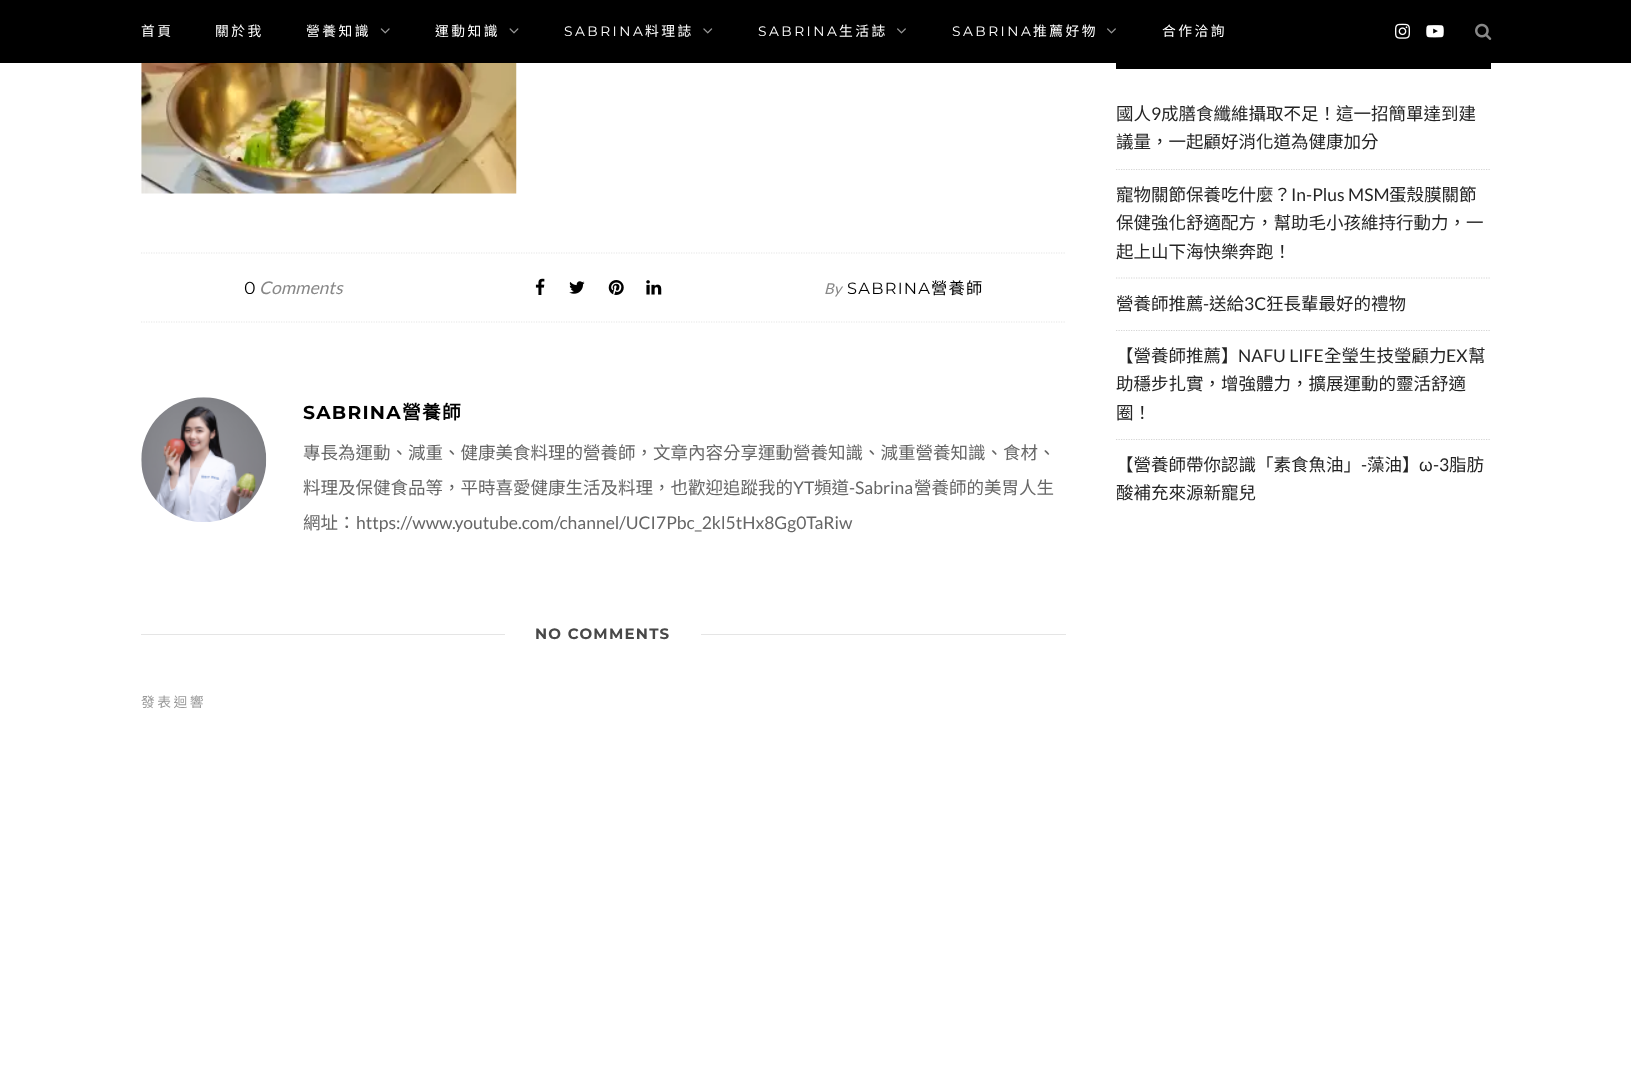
<!DOCTYPE html>
<meta charset="utf-8">
<style>body { margin: 0 } canvas { display: block }</style>
<canvas id="canvas" width="1631" height="1086"></canvas>
<img id="img1" src="images/1.png" hidden>
<img id="img2" src="images/2.png" hidden>
<img id="img3" src="images/3.png" hidden>
<img id="img4" src="images/4.png" hidden>
<img id="img5" src="images/5.png" hidden>
<img id="img6" src="images/6.png" hidden>
<img id="img7" src="images/7.png" hidden>
<img id="img8" src="images/8.png" hidden>
<img id="img9" src="images/9.png" hidden>
<img id="img10" src="images/10.png" hidden>
<img id="img11" src="images/11.png" hidden>
<img id="img12" src="images/12.png" hidden>
<img id="img13" src="images/13.png" hidden>
<script>
window.onload = function () {
    const canvas = document.getElementById('canvas');
    const context = canvas.getContext('2d');
    context.miterLimit = 4;
    context.fontKerning = 'normal';

    context.fillStyle = 'rgb(255, 255, 255)';
    context.fillRect(0, 0, 1631, 1086);
    context.fillStyle = 'rgb(0, 0, 0)';
    context.fillRect(0, 0, 1631, 63);
    context.drawImage(document.getElementById('img1'), 380, 28, 10, 6);
    context.drawImage(document.getElementById('img2'), 509, 28, 10, 6);
    context.drawImage(document.getElementById('img3'), 703, 28, 10, 6);
    context.drawImage(document.getElementById('img4'), 897, 28, 9, 6);
    context.drawImage(document.getElementById('img4'), 1107, 28, 9, 6);
    context.drawImage(document.getElementById('img5'), 1395, 23, 15, 16);
    context.drawImage(document.getElementById('img6'), 1426, 25, 18, 13);
    context.drawImage(document.getElementById('img7'), 1475, 23, 17, 17);
    context.drawImage(document.getElementById('img8'), 141, 63, 376, 131);
    context.beginPath();
    context.moveTo(141, 253);
    context.lineTo(1066, 253);
    context.strokeStyle = 'rgb(229, 229, 229)';
    context.lineWidth = 1.2;
    context.setLineDash([1.25, 1.25]);
    context.stroke();
    context.beginPath();
    context.moveTo(141, 322);
    context.lineTo(1066, 322);
    context.stroke();
    context.drawImage(document.getElementById('img9'), 535, 278, 10, 17);
    context.drawImage(document.getElementById('img10'), 569, 281, 16, 13);
    context.drawImage(document.getElementById('img11'), 608, 280, 16, 15);
    context.drawImage(document.getElementById('img12'), 646, 280, 16, 15);
    context.drawImage(document.getElementById('img13'), 141, 397, 126, 125);
    context.fillStyle = 'rgb(229, 229, 229)';
    context.fillRect(141, 634, 925, 1);
    context.fillStyle = 'rgb(255, 255, 255)';
    context.fillRect(505, 634, 196, 1);
    context.fillStyle = 'rgb(0, 0, 0)';
    context.fillRect(1116, 63, 375, 6);
    context.beginPath();
    context.moveTo(1116, 169.5);
    context.lineTo(1491, 169.5);
    context.strokeStyle = 'rgb(213, 213, 213)';
    context.stroke();
    context.beginPath();
    context.moveTo(1116, 278);
    context.lineTo(1491, 278);
    context.stroke();
    context.beginPath();
    context.moveTo(1116, 330.5);
    context.lineTo(1491, 330.5);
    context.stroke();
    context.beginPath();
    context.moveTo(1116, 439.5);
    context.lineTo(1491, 439.5);
    context.stroke();
    context.letterSpacing = '2.5px';
    context.font = '13.75px Noto Sans CJK TC';
    context.fillStyle = 'rgb(255, 255, 255)';
    context.fillText('首頁', 141, 36);
    context.fillText('關於我', 215, 36);
    context.fillText('營養知識', 306, 36);
    context.fillText('運動知識', 435, 36);
    context.font = '13.75px Montserrat';
    context.fillText('SABRINA', 564, 36);
    context.font = '13.75px Noto Sans CJK TC';
    context.fillText('料理誌', 645, 36);
    context.font = '13.75px Montserrat';
    context.fillText('SABRINA', 758, 36);
    context.font = '13.75px Noto Sans CJK TC';
    context.fillText('生活誌', 839, 36);
    context.font = '13.75px Montserrat';
    context.fillText('SABRINA', 952, 36);
    context.font = '13.75px Noto Sans CJK TC';
    context.fillText('推薦好物', 1033, 36);
    context.fillText('合作洽詢', 1162, 36);
    context.letterSpacing = '0px';
    context.font = '17.5px Montserrat';
    context.fillStyle = 'rgb(0, 0, 0)';
    context.fillText('0', 244, 294);
    context.font = 'italic 17.5px Lato';
    context.fillStyle = 'rgb(136, 136, 136)';
    context.fillText('Comments', 259, 294);
    context.font = 'italic 15px Lato';
    context.fillText('By', 824, 294);
    context.letterSpacing = '1.25px';
    context.font = '16.25px Montserrat';
    context.fillStyle = 'rgb(0, 0, 0)';
    context.fillText('SABRINA', 847, 294);
    context.font = '16.25px Noto Sans CJK TC';
    context.fillText('營養師', 931, 294);
    context.font = 'bold 18.75px Montserrat';
    context.fillText('SABRINA', 303, 419);
    context.font = 'bold 18.75px Noto Sans CJK TC';
    context.fillText('營養師', 402, 419);
    context.letterSpacing = '0px';
    context.font = '17.5px Noto Sans CJK TC';
    context.fillStyle = 'rgb(102, 102, 102)';
    context.fillText('專長為運動、減重、健康美食料理的營養師，文章內容分享運動營養知識、減重營養知識、食材、', 303, 459);
    context.fillText('料理及保健食品等，平時喜愛健康生活及料理，也歡迎追蹤我的', 303, 494);
    context.font = '17.5px Lato';
    context.fillText('YT', 793, 494);
    context.font = '17.5px Noto Sans CJK TC';
    context.fillText('頻道', 814, 494);
    context.font = '17.5px Lato';
    context.fillText('-Sabrina', 849, 494);
    context.font = '17.5px Noto Sans CJK TC';
    context.fillText('營養師的美胃人生', 914, 494);
    context.fillText('網址：', 303, 529);
    context.font = '17.5px Lato';
    context.fillText('https://www.youtube.com/channel/UCI7Pbc_2kl5tHx8Gg0TaRiw', 356, 529);
    context.letterSpacing = '1.25px';
    context.font = 'bold 15px Montserrat';
    context.fillStyle = 'rgb(72, 72, 72)';
    context.fillText('NO COMMENTS', 535, 639);
    context.letterSpacing = '2.5px';
    context.font = '13.75px Noto Sans CJK TC';
    context.fillStyle = 'rgb(153, 153, 153)';
    context.fillText('發表迴響', 141, 707);
    context.letterSpacing = '0px';
    context.font = '17.5px Noto Sans CJK TC';
    context.fillStyle = 'rgb(36, 36, 36)';
    context.fillText('國人', 1116, 120);
    context.font = '17.5px Lato';
    context.fillText('9', 1151, 120);
    context.font = '17.5px Noto Sans CJK TC';
    context.fillText('成膳食纖維攝取不足！這一招簡單達到建', 1161, 120);
    context.fillText('議量，一起顧好消化道為健康加分', 1116, 148);
    context.fillText('寵物關節保養吃什麼？', 1116, 201);
    context.font = '17.5px Lato';
    context.fillText('In-Plus MSM', 1291, 201);
    context.font = '17.5px Noto Sans CJK TC';
    context.fillText('蛋殼膜關節', 1389, 201);
    context.fillText('保健強化舒適配方，幫助毛小孩維持行動力，一', 1116, 229);
    context.fillText('起上山下海快樂奔跑！', 1116, 258);
    context.fillText('營養師推薦', 1116, 310);
    context.font = '17.5px Lato';
    context.fillText('-', 1203, 310);
    context.font = '17.5px Noto Sans CJK TC';
    context.fillText('送給', 1209, 310);
    context.font = '17.5px Lato';
    context.fillText('3C', 1244, 310);
    context.font = '17.5px Noto Sans CJK TC';
    context.fillText('狂長輩最好的禮物', 1266, 310);
    context.fillText('【營養師推薦】', 1116, 362);
    context.font = '17.5px Lato';
    context.fillText('NAFU LIFE', 1238, 362);
    context.font = '17.5px Noto Sans CJK TC';
    context.fillText('全瑩生技瑩顧力', 1324, 362);
    context.font = '17.5px Lato';
    context.fillText('EX', 1446, 362);
    context.font = '17.5px Noto Sans CJK TC';
    context.fillText('幫', 1468, 362);
    context.fillText('助穩步扎實，增強體力，擴展運動的靈活舒適', 1116, 390);
    context.fillText('圈！', 1116, 419);
    context.fillText('【營養師帶你認識「素食魚油」', 1116, 471);
    context.font = '17.5px Lato';
    context.fillText('-', 1361, 471);
    context.font = '17.5px Noto Sans CJK TC';
    context.fillText('藻油】', 1367, 471);
    context.font = '17.5px Liberation Sans';
    context.fillText('ω', 1419, 471);
    context.font = '17.5px Lato';
    context.fillText('-3', 1433, 471);
    context.font = '17.5px Noto Sans CJK TC';
    context.fillText('脂肪', 1449, 471);
    context.fillText('酸補充來源新寵兒', 1116, 499);
};
</script>
